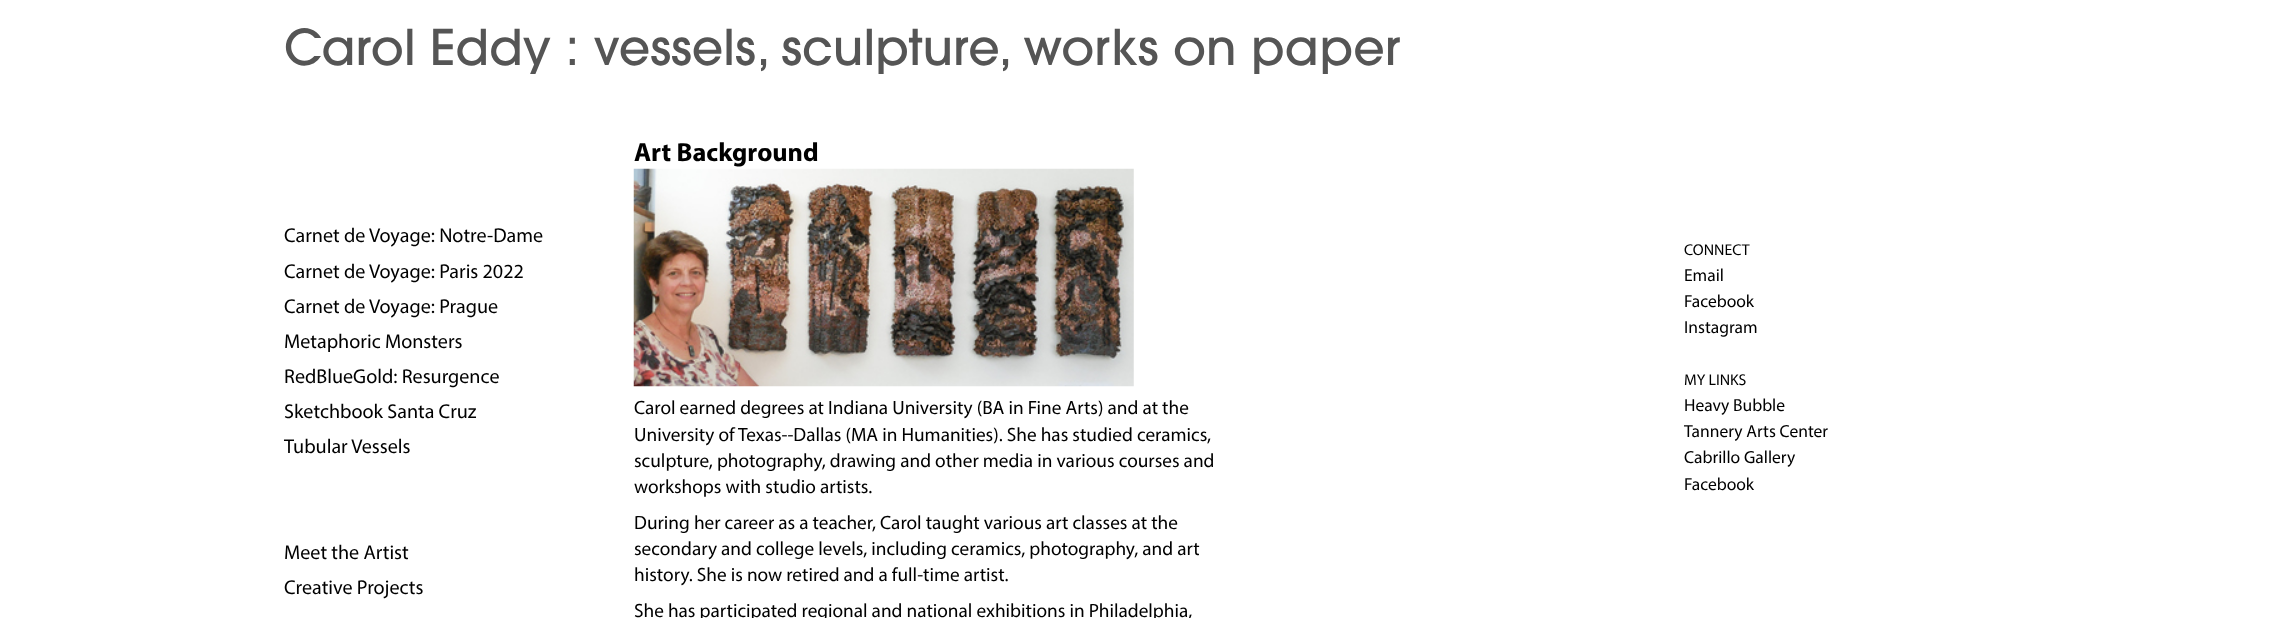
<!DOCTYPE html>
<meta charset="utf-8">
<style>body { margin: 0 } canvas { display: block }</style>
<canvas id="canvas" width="2292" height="618"></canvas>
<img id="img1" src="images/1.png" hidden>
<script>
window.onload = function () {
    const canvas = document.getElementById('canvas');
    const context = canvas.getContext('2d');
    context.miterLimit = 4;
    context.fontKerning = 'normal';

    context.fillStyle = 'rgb(255, 255, 255)';
    context.fillRect(0, 0, 2292, 618);
    context.drawImage(document.getElementById('img1'), 633, 168, 501, 219);
    context.font = '500 49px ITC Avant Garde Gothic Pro';
    context.fillStyle = 'rgb(85, 85, 85)';
    context.fillText('Carol Eddy : vessels, sculpture, works on paper', 284, 65);
    context.font = 'bold 26.25px Myriad';
    context.fillStyle = 'rgb(0, 0, 0)';
    context.fillText('Art Background', 634, 161);
    context.font = '19.25px Myriad';
    context.fillText('Carol earned degrees at Indiana University (BA in Fine Arts) and at the', 634, 414);
    context.fillText('University of Texas--Dallas (MA in Humanities). She has studied ceramics,', 634, 441);
    context.fillText('sculpture, photography, drawing and other media in various courses and', 634, 467);
    context.fillText('workshops with studio artists.', 634, 493);
    context.fillText('During her career as a teacher, Carol taught various art classes at the', 634, 529);
    context.fillText('secondary and college levels, including ceramics, photography, and art', 634, 555);
    context.fillText('history. She is now retired and a full-time artist.', 634, 581);
    context.fillText('She has participated regional and national exhibitions in Philadelphia,', 634, 617);
    context.font = '20.1px Myriad';
    context.fillText('Carnet de Voyage: Notre-Dame', 284, 242);
    context.fillText('Carnet de Voyage: Paris 2022', 284, 278);
    context.fillText('Carnet de Voyage: Prague', 284, 313);
    context.fillText('Metaphoric Monsters', 284, 348);
    context.fillText('RedBlueGold: Resurgence', 284, 383);
    context.fillText('Sketchbook Santa Cruz', 284, 418);
    context.fillText('Tubular Vessels', 284, 453);
    context.fillText('Meet the Artist', 284, 559);
    context.fillText('Creative Projects', 284, 594);
    context.font = '15.75px Myriad';
    context.fillText('CONNECT', 1684, 255);
    context.font = '17.5px Myriad';
    context.fillText('Email', 1684, 281);
    context.fillText('Facebook', 1684, 307);
    context.fillText('Instagram', 1684, 333);
    context.font = '15.75px Myriad';
    context.fillText('MY LINKS', 1684, 385);
    context.font = '17.5px Myriad';
    context.fillText('Heavy Bubble', 1684, 411);
    context.fillText('Tannery Arts Center', 1684, 437);
    context.fillText('Cabrillo Gallery', 1684, 463);
    context.fillText('Facebook', 1684, 490);
};
</script>
